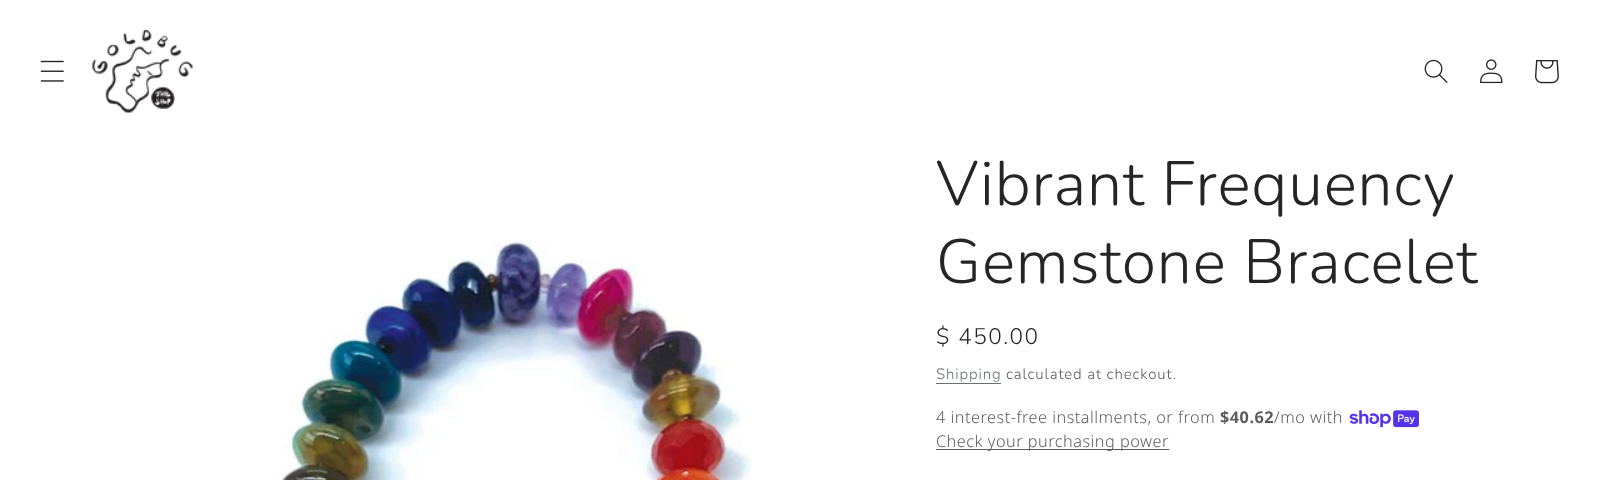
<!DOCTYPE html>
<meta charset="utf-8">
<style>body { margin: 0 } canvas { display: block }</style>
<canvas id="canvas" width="1608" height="480"></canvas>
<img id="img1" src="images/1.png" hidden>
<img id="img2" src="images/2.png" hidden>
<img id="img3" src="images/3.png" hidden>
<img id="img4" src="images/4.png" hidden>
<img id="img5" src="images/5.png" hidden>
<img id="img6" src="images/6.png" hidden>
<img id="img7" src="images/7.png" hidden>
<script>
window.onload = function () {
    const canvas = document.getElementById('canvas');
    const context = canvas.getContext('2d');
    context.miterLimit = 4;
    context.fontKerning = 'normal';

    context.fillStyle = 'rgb(255, 255, 255)';
    context.fillRect(0, 0, 1608, 480);
    context.drawImage(document.getElementById('img1'), 40, 60, 24, 22);
    context.drawImage(document.getElementById('img2'), 92, 29, 101, 84);
    context.drawImage(document.getElementById('img3'), 1424, 59, 24, 24);
    context.drawImage(document.getElementById('img4'), 1480, 59, 23, 25);
    context.drawImage(document.getElementById('img5'), 1535, 60, 24, 24);
    context.drawImage(document.getElementById('img6'), 278, 240, 474, 240);
    context.fillStyle = 'rgb(106, 111, 111)';
    context.fillRect(936, 383, 65, 1);
    context.drawImage(document.getElementById('img7'), 1349, 410, 70, 18);
    context.fillStyle = 'rgb(92, 92, 92)';
    context.fillRect(936, 449, 233, 1);
    context.letterSpacing = '0.9px';
    context.font = '300 62.5px Nunito';
    context.fillStyle = 'rgb(37, 37, 37)';
    context.fillText('Vibrant Frequency', 936, 205);
    context.fillText('Gemstone Bracelet', 936, 283);
    context.letterSpacing = '1.5px';
    context.font = '300 22.5px Nunito';
    context.fillText('$ 450.00', 936, 344);
    context.letterSpacing = '0.9px';
    context.font = '300 15px Nunito';
    context.fillStyle = 'rgb(106, 111, 111)';
    context.fillText('Shipping', 936, 379);
    context.fillStyle = 'rgb(92, 92, 92)';
    context.fillText('calculated at checkout.', 1006, 379);
    context.letterSpacing = '0.5px';
    context.font = '300 16.25px Noto Sans';
    context.fillText('4 interest-free installments, or from', 936, 423);
    context.font = 'bold 16.25px Noto Sans';
    context.fillText('$40.62', 1220, 423);
    context.font = '300 16.25px Noto Sans';
    context.fillText('/mo with', 1274, 423);
    context.fillText('Check your purchasing power', 936, 447);
};
</script>
